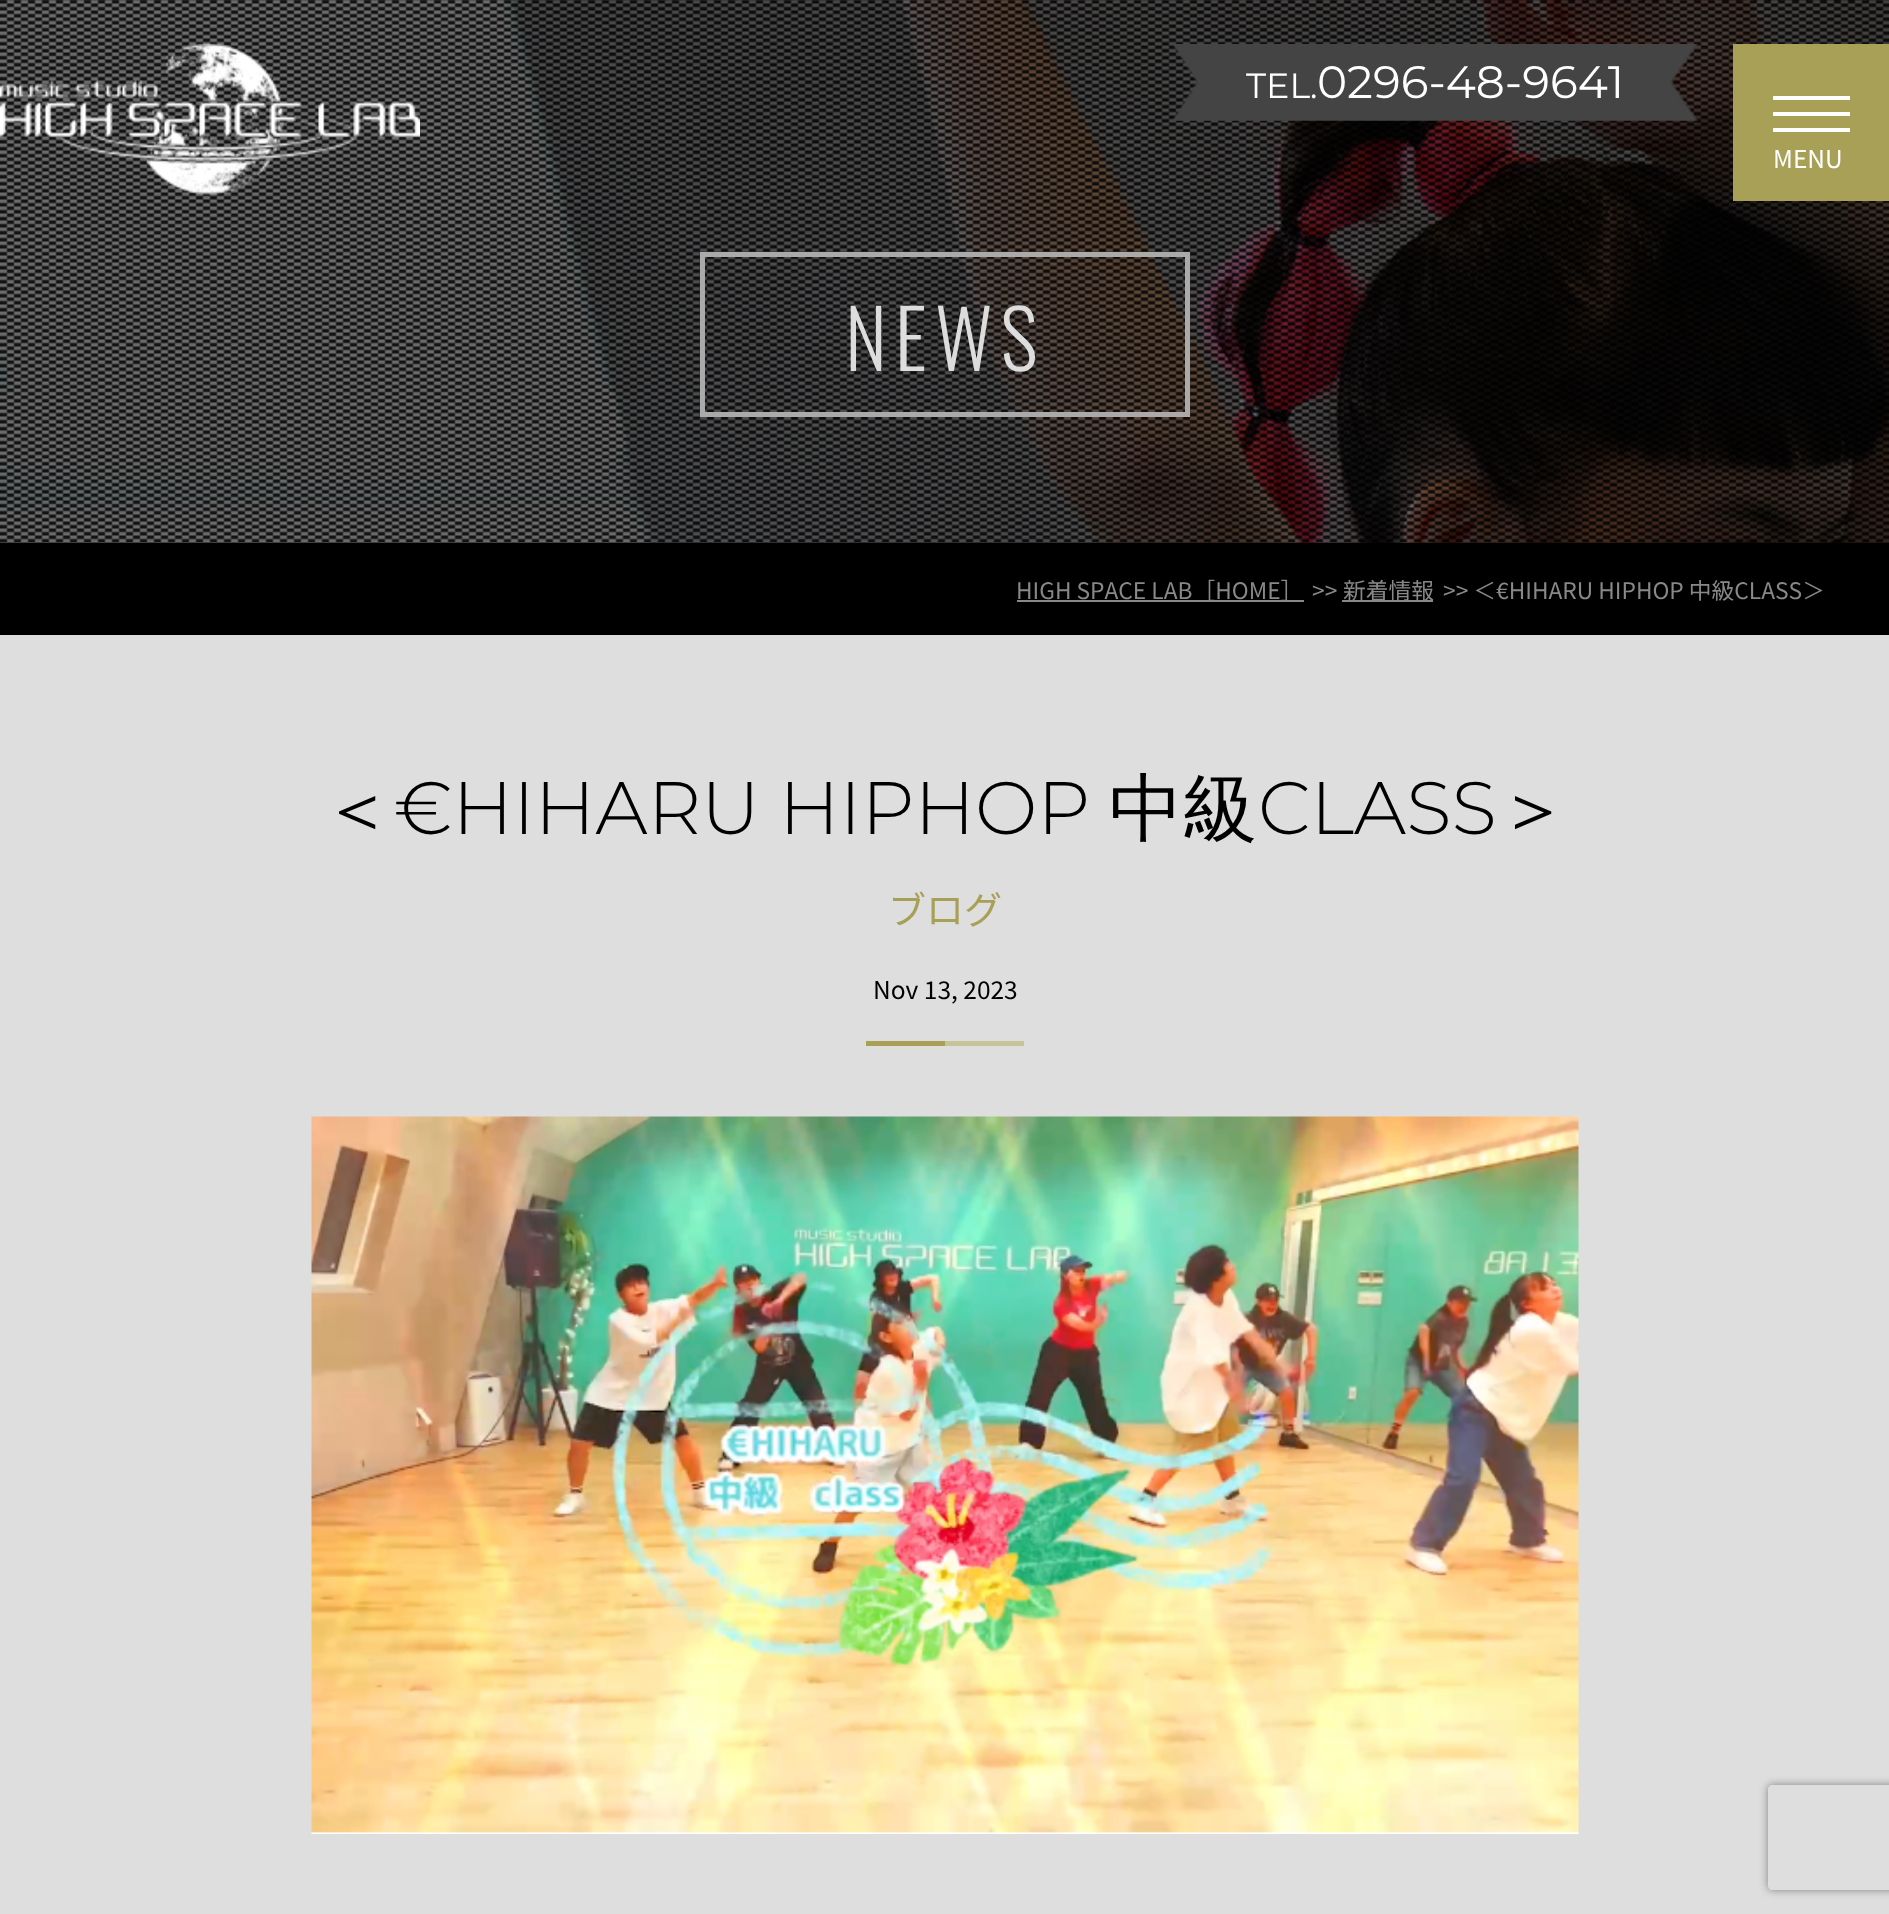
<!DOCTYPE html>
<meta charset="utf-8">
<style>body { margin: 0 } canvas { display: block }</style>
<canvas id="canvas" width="1889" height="1914"></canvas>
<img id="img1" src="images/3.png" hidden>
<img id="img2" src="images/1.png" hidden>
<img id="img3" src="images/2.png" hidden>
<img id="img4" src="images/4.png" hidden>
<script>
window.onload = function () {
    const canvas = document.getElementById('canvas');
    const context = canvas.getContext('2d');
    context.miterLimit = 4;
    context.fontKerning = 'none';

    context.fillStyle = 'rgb(222, 222, 222)';
    context.fillRect(0, 0, 1889, 1914);
    context.drawImage(document.getElementById('img1'), 0, 0, 1889, 543);
    context.drawImage(document.getElementById('img2'), 0, 43, 420, 152);
    context.drawImage(document.getElementById('img3'), 1173, 44, 525, 77);
    context.fillStyle = 'rgb(167, 160, 86)';
    context.fillRect(1733, 44, 156, 157);
    context.fillStyle = 'rgb(255, 255, 255)';
    context.fillRect(1773, 96, 77, 4);
    context.fillRect(1773, 112, 77, 4);
    context.fillRect(1773, 128, 77, 4);
    context.strokeStyle = 'rgb(170, 170, 170)';
    context.lineWidth = 5;
    context.strokeRect(702.5, 254.5, 485, 160);
    context.fillStyle = 'rgb(0, 0, 0)';
    context.fillRect(0, 543, 1889, 92);
    context.fillStyle = 'rgb(136, 136, 136)';
    context.fillRect(1017, 600, 287, 2);
    context.fillRect(1342, 600, 91, 2);
    context.fillStyle = 'rgb(167, 160, 86)';
    context.fillRect(866, 1041, 79, 5);
    context.fillStyle = 'rgb(199, 195, 152)';
    context.fillRect(945, 1041, 79, 5);
    context.drawImage(document.getElementById('img4'), 311, 1116, 1268, 718);
    context.save();
    context.beginPath();
    context.moveTo(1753, 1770);
    context.lineTo(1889, 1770);
    context.lineTo(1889, 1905);
    context.lineTo(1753, 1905);
    context.closePath();
    context.moveTo(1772, 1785);
    context.lineTo(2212, 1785);
    context.bezierCurveTo(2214, 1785, 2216, 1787, 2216, 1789);
    context.lineTo(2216, 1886);
    context.bezierCurveTo(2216, 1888, 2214, 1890, 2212, 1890);
    context.lineTo(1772, 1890);
    context.bezierCurveTo(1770, 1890, 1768, 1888, 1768, 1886);
    context.lineTo(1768, 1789);
    context.bezierCurveTo(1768, 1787, 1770, 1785, 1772, 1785);
    context.closePath();
    context.clip('evenodd');
    context.fillStyle = 'rgb(128, 128, 128)';
    context.filter = 'blur(4.5px)';
    context.beginPath();
    context.roundRect(1768, 1785, 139, 105, 4);
    context.fill();
    context.filter = 'none';
    context.restore();
    context.font = '35px Montserrat';
    context.fillStyle = 'rgb(255, 255, 255)';
    context.fillText('TEL.', 1246, 98);
    context.font = '45.5px Montserrat';
    context.fillText('0296-48-9641', 1317, 98);
    context.font = '24.5px Noto Sans JP';
    context.fillText('MENU', 1773, 168);
    context.letterSpacing = '8px';
    context.font = '300 80.5px Oswald';
    context.fillStyle = 'rgb(221, 221, 221)';
    context.fillText('NEWS', 845, 371);
    context.letterSpacing = '0px';
    context.font = '22.75px Noto Sans JP';
    context.fillStyle = 'rgb(136, 136, 136)';
    context.fillText('HIGH SPACE LAB［HOME］', 1016, 599);
    context.fillText('>>', 1312, 599);
    context.fillText('新着情報', 1343, 599);
    context.fillText('>> ＜€HIHARU HIPHOP 中級CLASS＞', 1443, 599);
    context.font = '500 74.25px WenQuanYi Zen Hei';
    context.fillStyle = 'rgb(0, 0, 0)';
    context.fillText('＜', 320, 834);
    context.font = '300 74.25px Montserrat';
    context.fillText('€HIHARU HIPHOP', 394, 834);
    context.font = '500 74.25px WenQuanYi Zen Hei';
    context.fillText('中級', 1109, 834);
    context.font = '300 74.25px Montserrat';
    context.fillText('CLASS', 1258, 834);
    context.font = '500 74.25px WenQuanYi Zen Hei';
    context.fillText('＞', 1496, 834);
    context.font = '38px Noto Sans JP';
    context.fillStyle = 'rgb(167, 160, 86)';
    context.fillText('ブログ', 888, 924);
    context.font = '24.5px Noto Sans JP';
    context.fillStyle = 'rgb(0, 0, 0)';
    context.fillText('Nov 13, 2023', 873, 999);
};
</script>
